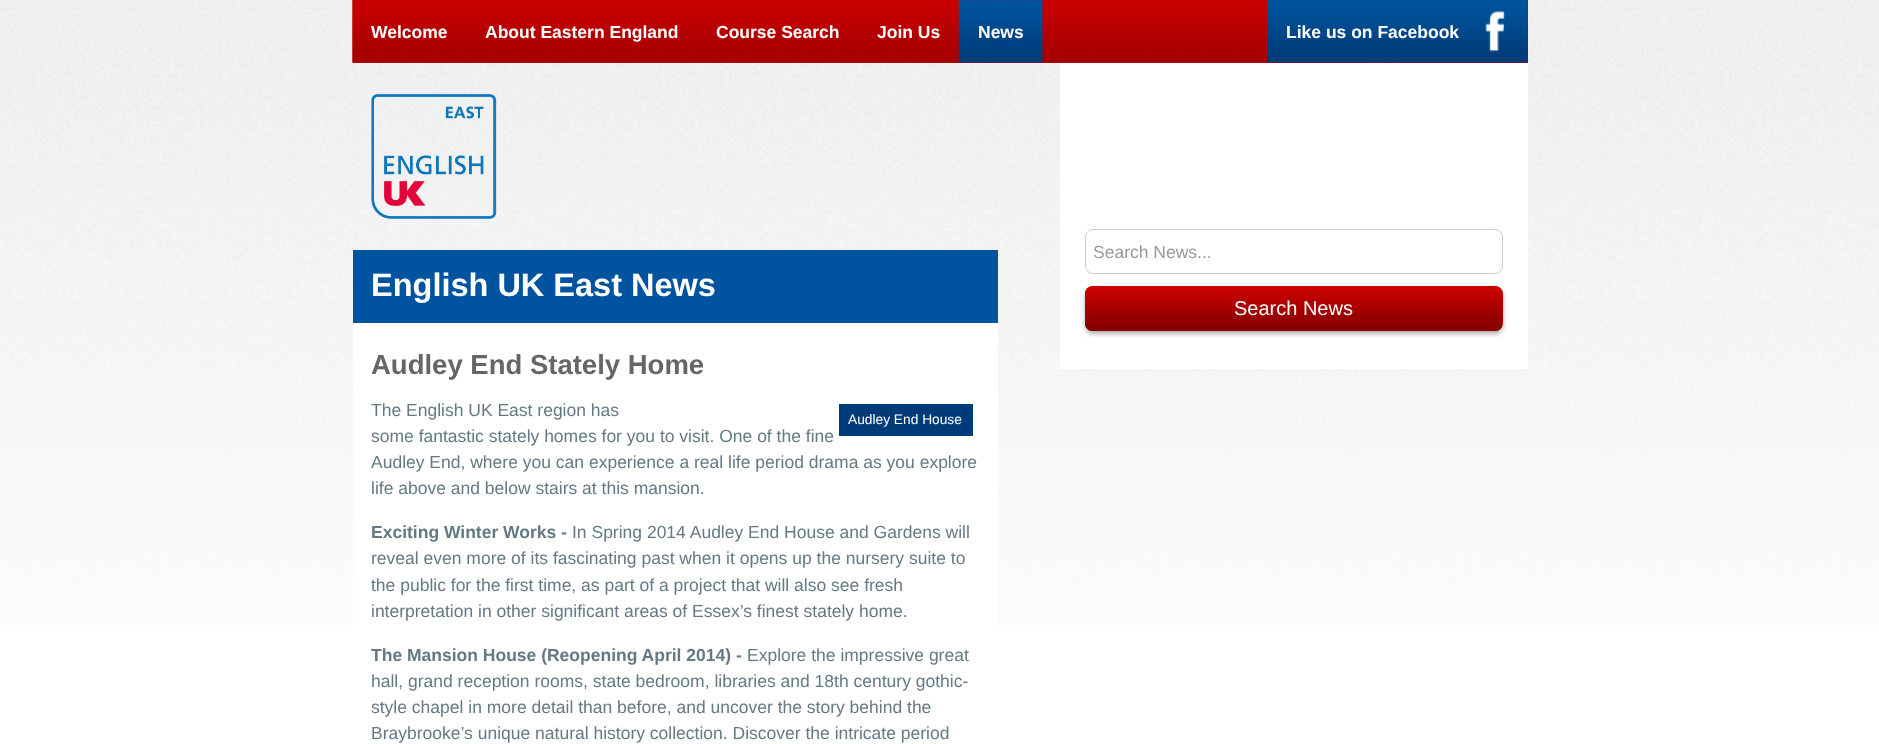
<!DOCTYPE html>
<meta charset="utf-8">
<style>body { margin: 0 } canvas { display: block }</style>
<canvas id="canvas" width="1879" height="744"></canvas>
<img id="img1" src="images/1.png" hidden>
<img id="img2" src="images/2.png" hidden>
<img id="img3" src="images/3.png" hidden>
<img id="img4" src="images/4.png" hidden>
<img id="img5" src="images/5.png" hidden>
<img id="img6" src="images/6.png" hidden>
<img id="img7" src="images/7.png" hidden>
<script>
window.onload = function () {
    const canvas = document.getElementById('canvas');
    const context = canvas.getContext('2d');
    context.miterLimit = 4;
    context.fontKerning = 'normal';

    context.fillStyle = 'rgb(255, 255, 255)';
    context.fillRect(0, 0, 1879, 744);
    context.drawImage(document.getElementById('img1'), 0, 0, 1879, 625);
    context.fillStyle = 'rgb(165, 0, 0)';
    context.fillRect(353, 0, 1175, 63);
    context.drawImage(document.getElementById('img2'), 352, 0, 1176, 63);
    context.drawImage(document.getElementById('img3'), 352, 0, 1, 63);
    context.drawImage(document.getElementById('img4'), 958, 0, 85, 63);
    context.drawImage(document.getElementById('img5'), 1267, 0, 261, 63);
    context.drawImage(document.getElementById('img6'), 371, 93, 126, 126);
    context.fillStyle = 'rgb(0, 83, 158)';
    context.fillRect(353, 250, 645, 73);
    context.fillStyle = 'rgb(255, 255, 255)';
    context.fillRect(353, 323, 645, 302);
    context.fillStyle = 'rgb(0, 59, 121)';
    context.fillRect(839, 404, 134, 32);
    context.fillStyle = 'rgb(255, 255, 255)';
    context.fillRect(1060, 63, 468, 306);
    context.beginPath();
    context.roundRect(1085.5, 229.5, 417, 44, 7.5);
    context.strokeStyle = 'rgb(204, 204, 204)';
    context.stroke();
    context.fillStyle = 'rgba(0, 0, 0, 0.3)';
    context.filter = 'blur(2.5px)';
    context.beginPath();
    context.roundRect(1085, 289, 418, 45, 8);
    context.fill();
    context.filter = 'none';
    context.fillStyle = 'rgb(200, 0, 0)';
    context.beginPath();
    context.roundRect(1085, 286, 418, 45, 8);
    context.fill();
    context.drawImage(document.getElementById('img7'), 1085, 286, 418, 46);
    context.font = 'bold 17.5px Liberation Sans';
    context.fillStyle = 'rgb(255, 255, 255)';
    context.fillText('Welcome', 371, 38);
    context.fillText('About Eastern England', 485, 38);
    context.fillText('Course Search', 716, 38);
    context.fillText('Join Us', 877, 38);
    context.fillText('News', 978, 38);
    context.fillText('Like us on Facebook', 1286, 38);
    context.font = 'bold 32.5px Liberation Sans';
    context.fillText('English UK East News', 371, 296);
    context.font = 'bold 27.5px Liberation Sans';
    context.fillStyle = 'rgb(102, 102, 102)';
    context.fillText('Audley End Stately Home', 371, 374);
    context.font = '17.5px Liberation Sans';
    context.fillStyle = 'rgb(99, 122, 132)';
    context.fillText('The English UK East region has', 371, 416);
    context.fillText('some fantastic stately homes for you to visit. One of the fine', 371, 442);
    context.fillText('Audley End, where you can experience a real life period drama as you explore', 371, 468);
    context.fillText('life above and below stairs at this mansion.', 371, 494);
    context.font = '13.75px Liberation Sans';
    context.fillStyle = 'rgb(255, 255, 255)';
    context.fillText('Audley End House', 848, 424);
    context.font = 'bold 17.5px Liberation Sans';
    context.fillStyle = 'rgb(99, 122, 132)';
    context.fillText('Exciting Winter Works -', 371, 538);
    context.font = '17.5px Liberation Sans';
    context.fillText('In Spring 2014 Audley End House and Gardens will', 572, 538);
    context.fillText('reveal even more of its fascinating past when it opens up the nursery suite to', 371, 564);
    context.fillText('the public for the first time, as part of a project that will also see fresh', 371, 591);
    context.fillText('interpretation in other significant areas of Essex’s finest stately home.', 371, 617);
    context.font = 'bold 17.5px Liberation Sans';
    context.fillText('The Mansion House (Reopening April 2014) -', 371, 661);
    context.font = '17.5px Liberation Sans';
    context.fillText('Explore the impressive great', 747, 661);
    context.fillText('hall, grand reception rooms, state bedroom, libraries and 18th century gothic-', 371, 687);
    context.fillText('style chapel in more detail than before, and uncover the story behind the', 371, 713);
    context.fillText('Braybrooke’s unique natural history collection. Discover the intricate period', 371, 739);
    context.fillStyle = 'rgb(153, 153, 153)';
    context.fillText('Search News...', 1093, 258);
    context.font = '20px Liberation Sans';
    context.fillStyle = 'rgb(255, 255, 255)';
    context.fillText('Search News', 1234, 315);
};
</script>
